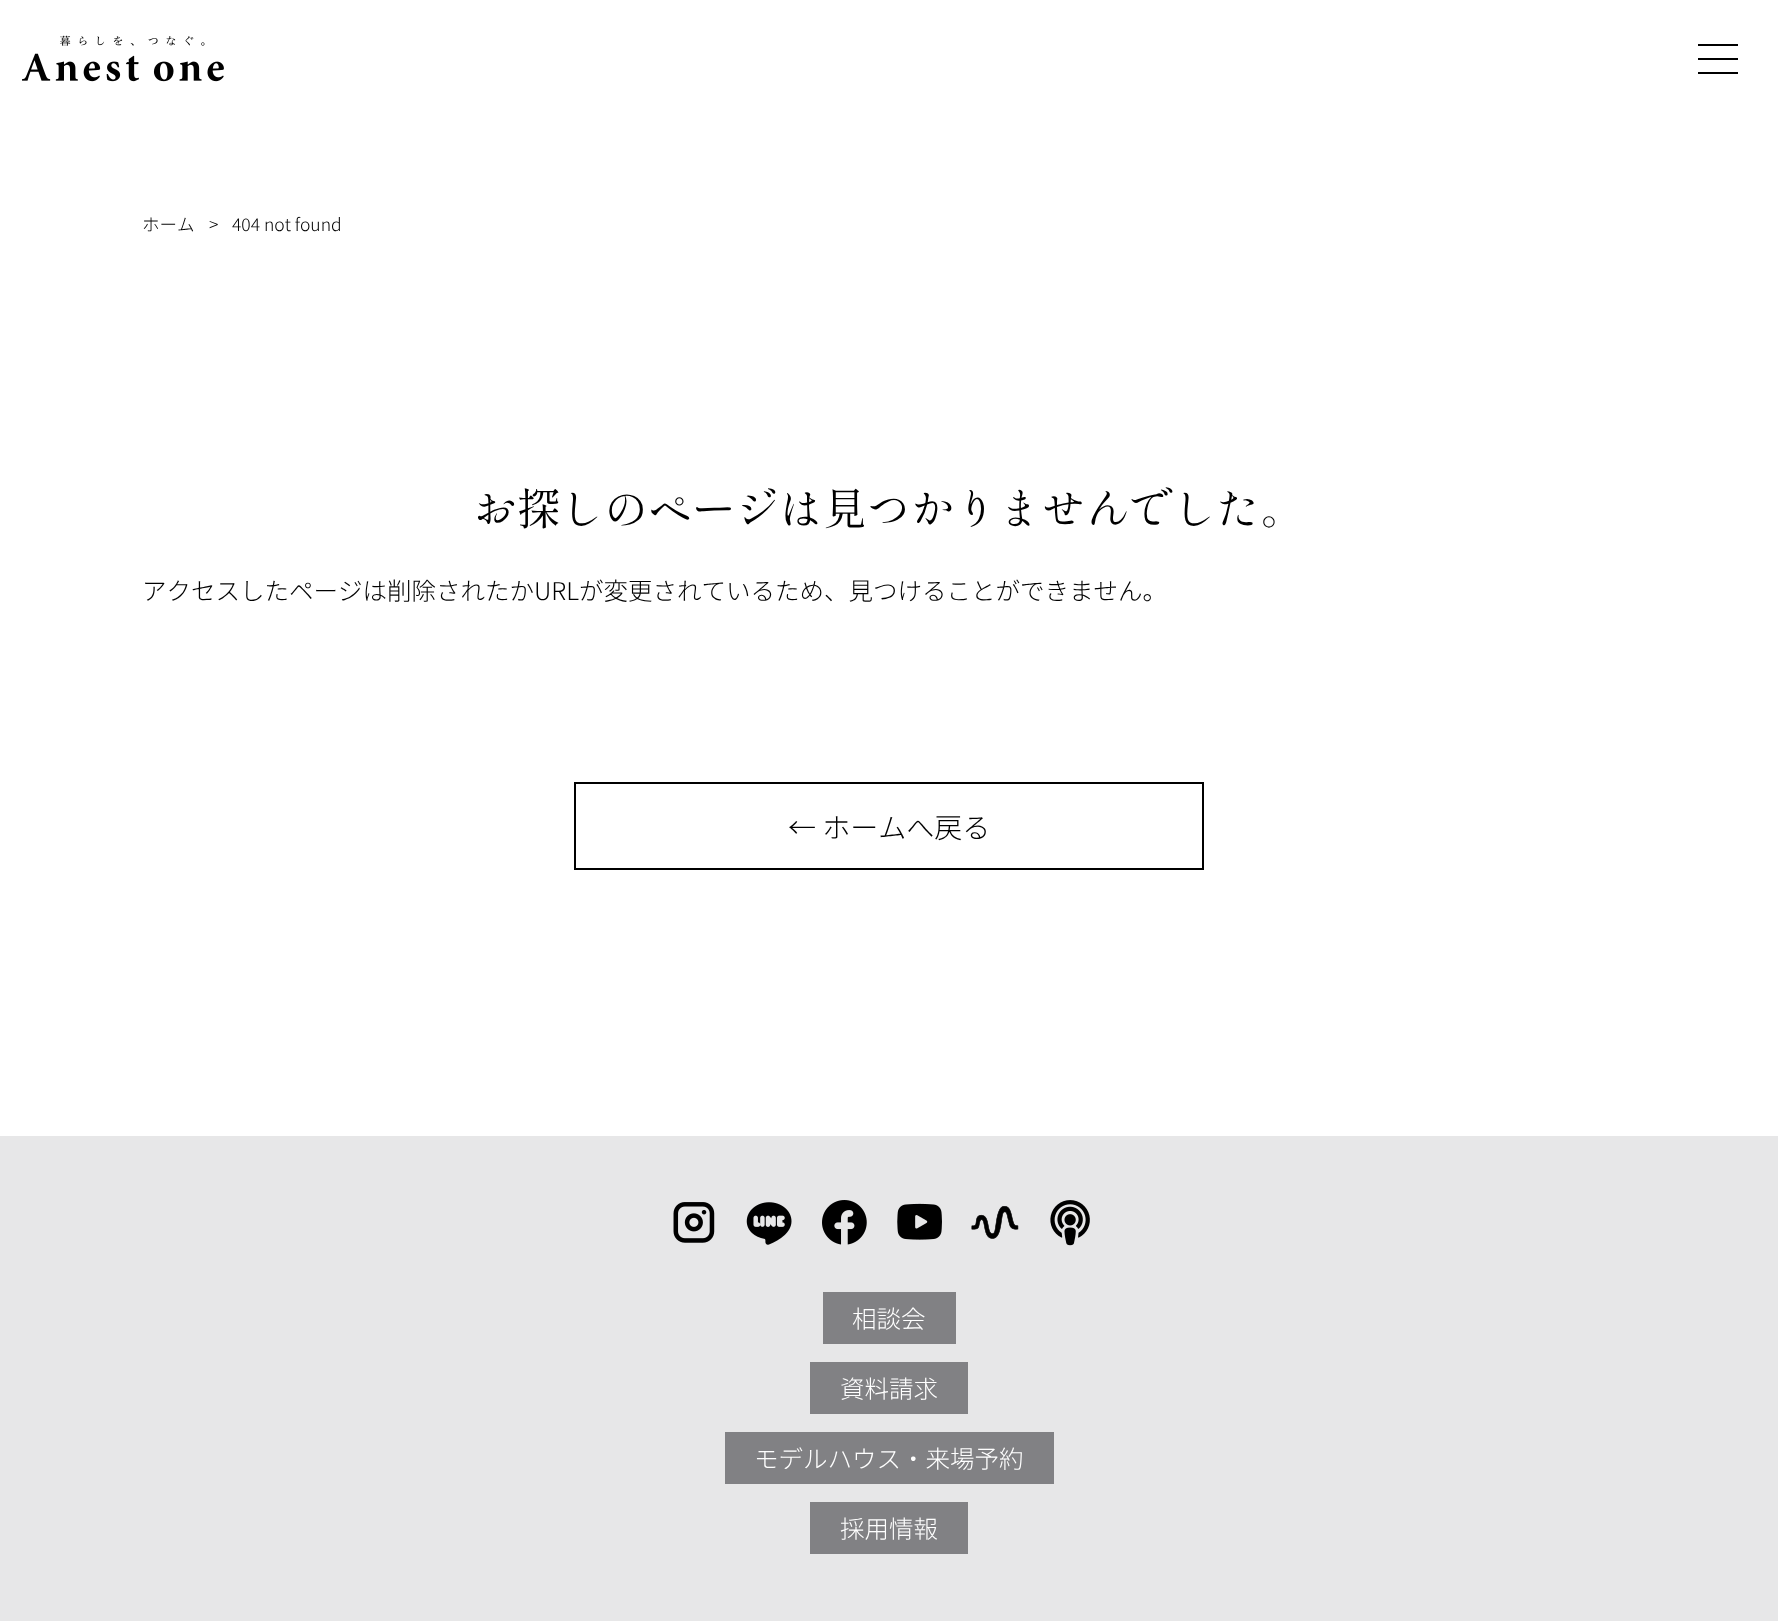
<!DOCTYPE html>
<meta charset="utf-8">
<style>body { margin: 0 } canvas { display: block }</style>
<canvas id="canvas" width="1778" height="1621"></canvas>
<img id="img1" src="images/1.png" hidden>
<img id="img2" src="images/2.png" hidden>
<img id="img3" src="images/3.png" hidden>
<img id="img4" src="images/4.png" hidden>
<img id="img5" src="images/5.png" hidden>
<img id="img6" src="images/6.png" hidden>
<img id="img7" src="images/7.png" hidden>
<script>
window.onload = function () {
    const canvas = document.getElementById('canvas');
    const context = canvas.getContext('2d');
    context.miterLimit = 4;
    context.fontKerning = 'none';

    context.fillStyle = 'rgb(255, 255, 255)';
    context.fillRect(0, 0, 1778, 1621);
    context.drawImage(document.getElementById('img1'), 22, 35, 202, 47);
    context.fillStyle = 'rgb(0, 0, 0)';
    context.fillRect(1698, 44, 40, 2);
    context.fillRect(1698, 58, 40, 2);
    context.fillRect(1698, 72, 40, 2);
    context.strokeStyle = 'rgb(0, 0, 0)';
    context.lineWidth = 2;
    context.strokeRect(575, 783, 628, 86);
    context.fillStyle = 'rgb(231, 231, 232)';
    context.fillRect(0, 1136, 1778, 485);
    context.drawImage(document.getElementById('img2'), 673, 1202, 42, 41);
    context.drawImage(document.getElementById('img3'), 746, 1202, 46, 43);
    context.drawImage(document.getElementById('img4'), 822, 1200, 45, 45);
    context.drawImage(document.getElementById('img5'), 897, 1203, 45, 37);
    context.drawImage(document.getElementById('img6'), 971, 1206, 48, 33);
    context.drawImage(document.getElementById('img7'), 1050, 1200, 40, 46);
    context.fillStyle = 'rgb(129, 129, 132)';
    context.fillRect(823, 1292, 133, 52);
    context.fillRect(810, 1362, 158, 52);
    context.fillRect(725, 1432, 329, 52);
    context.fillRect(810, 1502, 158, 52);
    context.font = '300 17.5px Noto Sans JP';
    context.fillStyle = 'rgb(0, 0, 0)';
    context.fillText('ホーム', 142, 231);
    context.fillText('>', 209, 231);
    context.fillText('404 not found', 232, 231);
    context.font = '43.75px Shippori Mincho';
    context.fillText('お探しのページは見つかりませんでした。', 473, 525);
    context.font = '300 24.5px Noto Sans JP';
    context.fillText('アクセスしたページは削除されたかURLが変更されているため、見つけることができません。', 142, 600);
    context.font = '300 28px Noto Sans JP';
    context.fillText('← ホームへ戻る', 788, 838);
    context.font = '300 24.5px Noto Sans JP';
    context.fillStyle = 'rgb(255, 255, 255)';
    context.fillText('相談会', 852, 1328);
    context.fillText('資料請求', 840, 1398);
    context.fillText('モデルハウス・来場予約', 754, 1468);
    context.fillText('採用情報', 840, 1538);
};
</script>
